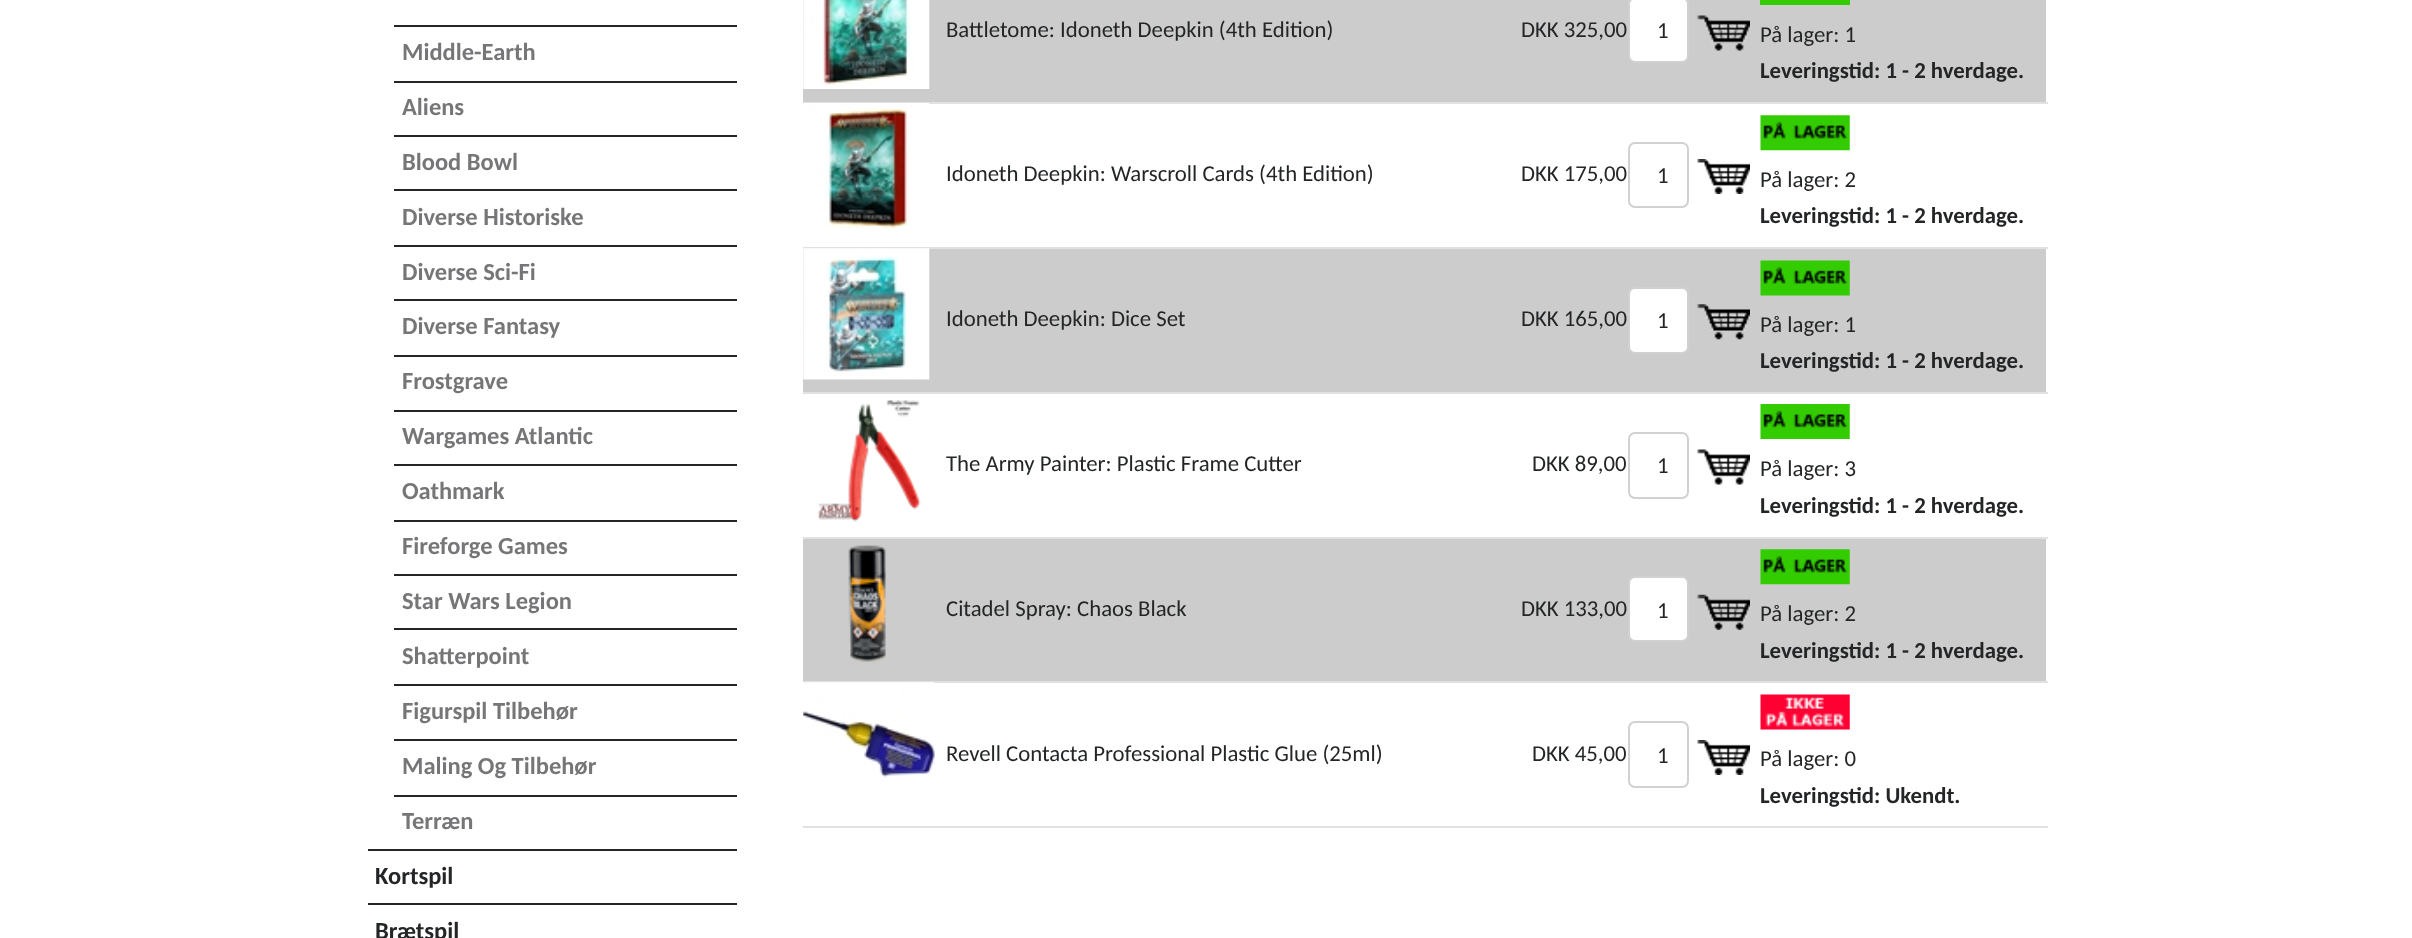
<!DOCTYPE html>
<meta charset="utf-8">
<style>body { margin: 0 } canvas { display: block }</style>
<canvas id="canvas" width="2412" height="938"></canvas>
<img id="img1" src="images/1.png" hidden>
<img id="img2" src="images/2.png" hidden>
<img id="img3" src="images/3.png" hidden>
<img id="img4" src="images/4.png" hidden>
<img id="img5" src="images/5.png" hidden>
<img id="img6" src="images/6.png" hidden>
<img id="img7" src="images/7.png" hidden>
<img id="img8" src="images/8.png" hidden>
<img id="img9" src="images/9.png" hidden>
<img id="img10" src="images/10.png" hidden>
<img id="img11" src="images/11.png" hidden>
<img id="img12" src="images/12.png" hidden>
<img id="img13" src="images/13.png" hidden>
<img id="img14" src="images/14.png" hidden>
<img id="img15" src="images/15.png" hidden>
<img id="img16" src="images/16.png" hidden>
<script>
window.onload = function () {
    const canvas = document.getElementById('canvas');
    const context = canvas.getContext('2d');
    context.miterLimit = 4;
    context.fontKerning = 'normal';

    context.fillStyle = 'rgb(255, 255, 255)';
    context.fillRect(0, 0, 2412, 938);
    context.fillStyle = 'rgb(35, 37, 38)';
    context.fillRect(394, 25, 343, 2);
    context.fillRect(394, 81, 343, 2);
    context.fillRect(394, 135, 343, 2);
    context.fillRect(394, 189, 343, 2);
    context.fillRect(394, 245, 343, 2);
    context.fillRect(394, 299, 343, 2);
    context.fillRect(394, 355, 343, 2);
    context.fillRect(394, 410, 343, 2);
    context.fillRect(394, 464, 343, 2);
    context.fillRect(394, 520, 343, 2);
    context.fillRect(394, 574, 343, 2);
    context.fillRect(394, 628, 343, 2);
    context.fillRect(394, 684, 343, 2);
    context.fillRect(394, 739, 343, 2);
    context.fillRect(394, 795, 343, 2);
    context.fillRect(368, 849, 369, 2);
    context.fillRect(368, 903, 369, 2);
    context.fillStyle = 'rgb(204, 204, 204)';
    context.fillRect(803, 0, 1243, 102);
    context.drawImage(document.getElementById('img1'), 803, 0, 127, 89);
    context.fillStyle = 'rgb(255, 255, 255)';
    context.beginPath();
    context.roundRect(1629, -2, 59, 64, 6);
    context.fill();
    context.strokeStyle = 'rgb(209, 209, 209)';
    context.lineWidth = 2;
    context.stroke();
    context.drawImage(document.getElementById('img2'), 1697, 15, 53, 36);
    context.fillStyle = 'rgb(225, 225, 225)';
    context.fillRect(803, 102, 1245, 2);
    context.fillStyle = 'rgb(51, 204, 0)';
    context.fillRect(1760, 0, 90, 5);
    context.drawImage(document.getElementById('img3'), 803, 103, 127, 127);
    context.beginPath();
    context.roundRect(1629, 143, 59, 64, 6);
    context.stroke();
    context.drawImage(document.getElementById('img4'), 1697, 159, 53, 35);
    context.fillStyle = 'rgb(225, 225, 225)';
    context.fillRect(803, 247, 1245, 2);
    context.drawImage(document.getElementById('img5'), 1760, 115, 90, 36);
    context.fillStyle = 'rgb(204, 204, 204)';
    context.fillRect(803, 249, 1243, 143);
    context.drawImage(document.getElementById('img6'), 803, 248, 127, 132);
    context.fillStyle = 'rgb(255, 255, 255)';
    context.beginPath();
    context.roundRect(1629, 288, 59, 65, 6);
    context.fill();
    context.stroke();
    context.drawImage(document.getElementById('img7'), 1697, 304, 53, 36);
    context.fillStyle = 'rgb(225, 225, 225)';
    context.fillRect(803, 392, 1245, 2);
    context.drawImage(document.getElementById('img8'), 1760, 260, 90, 36);
    context.drawImage(document.getElementById('img9'), 818, 400, 103, 122);
    context.beginPath();
    context.roundRect(1629, 433, 59, 65, 6);
    context.stroke();
    context.drawImage(document.getElementById('img10'), 1697, 449, 53, 36);
    context.fillRect(803, 537, 1245, 2);
    context.drawImage(document.getElementById('img11'), 1760, 404, 90, 35);
    context.fillStyle = 'rgb(204, 204, 204)';
    context.fillRect(803, 539, 1243, 142);
    context.drawImage(document.getElementById('img12'), 848, 545, 38, 117);
    context.fillStyle = 'rgb(255, 255, 255)';
    context.beginPath();
    context.roundRect(1629, 577, 59, 64, 6);
    context.fill();
    context.stroke();
    context.drawImage(document.getElementById('img13'), 1697, 594, 53, 36);
    context.fillStyle = 'rgb(225, 225, 225)';
    context.fillRect(803, 681, 1245, 2);
    context.drawImage(document.getElementById('img14'), 1760, 549, 90, 36);
    context.drawImage(document.getElementById('img15'), 803, 682, 132, 96);
    context.beginPath();
    context.roundRect(1629, 722, 59, 65, 6);
    context.stroke();
    context.drawImage(document.getElementById('img4'), 1697, 740, 53, 35);
    context.fillRect(803, 826, 1245, 2);
    context.drawImage(document.getElementById('img16'), 1760, 694, 90, 36);
    context.font = 'bold 24.5px Carlito';
    context.fillStyle = 'rgb(118, 118, 120)';
    context.fillText('Middle-Earth', 402, 60);
    context.fillText('Aliens', 402, 115);
    context.fillText('Blood Bowl', 402, 170);
    context.fillText('Diverse Historiske', 402, 225);
    context.fillText('Diverse Sci-Fi', 402, 280);
    context.fillText('Diverse Fantasy', 402, 334);
    context.fillText('Frostgrave', 402, 389);
    context.fillText('Wargames Atlantic', 402, 444);
    context.fillText('Oathmark', 402, 499);
    context.fillText('Fireforge Games', 402, 554);
    context.fillText('Star Wars Legion', 402, 609);
    context.fillText('Shatterpoint', 402, 664);
    context.fillText('Figurspil Tilbehør', 402, 719);
    context.fillText('Maling Og Tilbehør', 402, 774);
    context.fillText('Terræn', 402, 829);
    context.fillStyle = 'rgb(35, 37, 38)';
    context.fillText('Kortspil', 375, 884);
    context.fillText('Brætspil', 375, 939);
    context.font = '22.75px Carlito';
    context.fillText('Battletome: Idoneth Deepkin (4th Edition)', 946, 37);
    context.fillText('DKK 325,00', 1521, 37);
    context.fillText('1', 1657, 38);
    context.fillText('På lager: 1', 1760, 42);
    context.font = 'bold 22.75px Carlito';
    context.fillText('Leveringstid: 1 - 2 hverdage.', 1760, 78);
    context.font = '22.75px Carlito';
    context.fillText('Idoneth Deepkin: Warscroll Cards (4th Edition)', 946, 181);
    context.fillText('DKK 175,00', 1521, 181);
    context.fillText('1', 1657, 183);
    context.fillText('På lager: 2', 1760, 187);
    context.font = 'bold 22.75px Carlito';
    context.fillText('Leveringstid: 1 - 2 hverdage.', 1760, 223);
    context.font = '22.75px Carlito';
    context.fillText('Idoneth Deepkin: Dice Set', 946, 326);
    context.fillText('DKK 165,00', 1521, 326);
    context.fillText('1', 1657, 328);
    context.fillText('På lager: 1', 1760, 332);
    context.font = 'bold 22.75px Carlito';
    context.fillText('Leveringstid: 1 - 2 hverdage.', 1760, 368);
    context.font = '22.75px Carlito';
    context.fillText('The Army Painter: Plastic Frame Cutter', 946, 471);
    context.fillText('DKK 89,00', 1532, 471);
    context.fillText('1', 1657, 473);
    context.fillText('På lager: 3', 1760, 476);
    context.font = 'bold 22.75px Carlito';
    context.fillText('Leveringstid: 1 - 2 hverdage.', 1760, 513);
    context.font = '22.75px Carlito';
    context.fillText('Citadel Spray: Chaos Black', 946, 616);
    context.fillText('DKK 133,00', 1521, 616);
    context.fillText('1', 1657, 618);
    context.fillText('På lager: 2', 1760, 621);
    context.font = 'bold 22.75px Carlito';
    context.fillText('Leveringstid: 1 - 2 hverdage.', 1760, 658);
    context.font = '22.75px Carlito';
    context.fillText('Revell Contacta Professional Plastic Glue (25ml)', 946, 761);
    context.fillText('DKK 45,00', 1532, 761);
    context.fillText('1', 1657, 763);
    context.fillText('På lager: 0', 1760, 766);
    context.font = 'bold 22.75px Carlito';
    context.fillText('Leveringstid: Ukendt.', 1760, 803);
};
</script>
